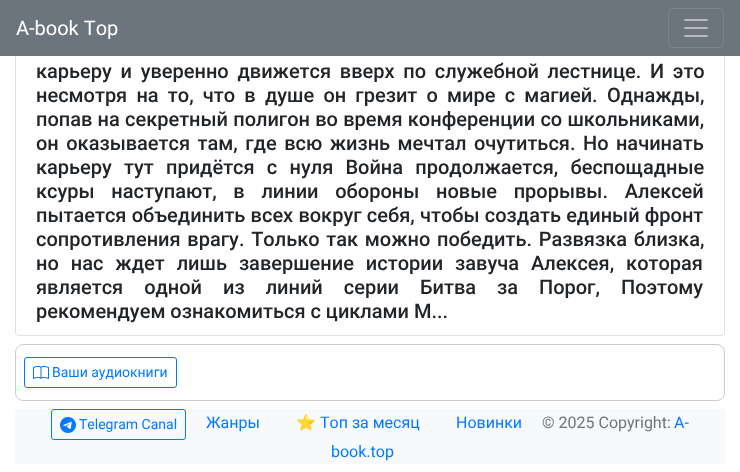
<!DOCTYPE html>
<meta charset="utf-8">
<style>body { margin: 0 } canvas { display: block }</style>
<canvas id="canvas" width="740" height="472"></canvas>
<img id="img1" src="images/1.png" hidden>
<img id="img2" src="images/2.png" hidden>
<img id="img3" src="images/3.png" hidden>
<script>
window.onload = function () {
    const canvas = document.getElementById('canvas');
    const context = canvas.getContext('2d');
    context.miterLimit = 4;
    context.fontKerning = 'none';

    context.fillStyle = 'rgb(255, 255, 255)';
    context.fillRect(0, 0, 740, 472);
    context.fillStyle = 'rgb(223, 223, 223)';
    context.beginPath();
    context.moveTo(15, -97);
    context.lineTo(725, -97);
    context.lineTo(725, 332);
    context.bezierCurveTo(725, 334, 723, 336, 721, 336);
    context.lineTo(19, 336);
    context.bezierCurveTo(17, 336, 15, 334, 15, 332);
    context.closePath();
    context.moveTo(16, -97);
    context.lineTo(724, -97);
    context.lineTo(724, 332);
    context.bezierCurveTo(724, 334, 723, 335, 721, 335);
    context.lineTo(19, 335);
    context.bezierCurveTo(17, 335, 16, 334, 16, 332);
    context.closePath();
    context.fill('evenodd');
    context.fillStyle = 'rgb(108, 117, 125)';
    context.fillRect(0, 0, 740, 56);
    context.beginPath();
    context.roundRect(668.5, 8.5, 55, 39, 3.5);
    context.strokeStyle = 'rgb(123, 131, 138)';
    context.stroke();
    context.drawImage(document.getElementById('img1'), 684, 19, 24, 18);
    context.beginPath();
    context.roundRect(15.5, 344.5, 709, 56, 7.5);
    context.strokeStyle = 'rgb(204, 204, 204)';
    context.stroke();
    context.beginPath();
    context.roundRect(24.5, 357.5, 152, 30, 2.5);
    context.strokeStyle = 'rgb(0, 123, 255)';
    context.stroke();
    context.drawImage(document.getElementById('img2'), 33, 365, 16, 14);
    context.fillStyle = 'rgb(248, 249, 250)';
    context.fillRect(15, 409, 710, 55);
    context.beginPath();
    context.roundRect(51.5, 409.5, 134, 30, 2.5);
    context.stroke();
    context.drawImage(document.getElementById('img3'), 60, 417, 16, 16);
    context.font = '20px Roboto';
    context.fillStyle = 'rgb(255, 255, 255)';
    context.fillText('A-book Top', 16, 35);
    context.wordSpacing = '3.75px';
    context.font = '500 20px Roboto';
    context.fillStyle = 'rgb(33, 37, 41)';
    context.fillText('карьеру и уверенно движется вверх по служебной лестнице. И это', 36, 78);
    context.wordSpacing = '4.25px';
    context.fillText('несмотря на то, что в душе он грезит о мире с магией. Однажды,', 36, 102);
    context.wordSpacing = '0.25px';
    context.fillText('попав на секретный полигон во время конференции со школьниками,', 36, 126);
    context.wordSpacing = '2.5px';
    context.fillText('он оказывается там, где всю жизнь мечтал очутиться. Но начинать', 36, 150);
    context.wordSpacing = '7.25px';
    context.fillText('карьеру тут придётся с нуля Война продолжается, беспощадные', 36, 174);
    context.wordSpacing = '11.75px';
    context.fillText('ксуры наступают, в линии обороны новые прорывы. Алексей', 36, 198);
    context.wordSpacing = '0.25px';
    context.fillText('пытается объединить всех вокруг себя, чтобы создать единый фронт', 36, 222);
    context.wordSpacing = '1.75px';
    context.fillText('сопротивления врагу. Только так можно победить. Развязка близка,', 36, 246);
    context.wordSpacing = '7px';
    context.fillText('но нас ждет лишь завершение истории завуча Алексея, которая', 36, 270);
    context.wordSpacing = '16px';
    context.fillText('является одной из линий серии Битва за Порог, Поэтому', 36, 294);
    context.wordSpacing = '0px';
    context.fillText('рекомендуем ознакомиться с циклами М...', 36, 318);
    context.font = '14px Roboto';
    context.fillStyle = 'rgb(0, 123, 255)';
    context.fillText('Ваши аудиокниги', 52, 377);
    context.fillText('Telegram Canal', 79, 429);
    context.font = '16px Roboto';
    context.fillText('Жанры', 206, 428);
    context.font = '16px Noto Color Emoji';
    context.fillText('⭐', 296, 428);
    context.font = '16px Roboto';
    context.fillText('Топ за месяц', 320, 428);
    context.fillText('Новинки', 456, 428);
    context.fillStyle = 'rgb(108, 117, 125)';
    context.fillText('© 2025 Copyright:', 542, 428);
    context.fillStyle = 'rgb(0, 123, 255)';
    context.fillText('A-', 674, 428);
    context.fillText('book.top', 331, 457);
};
</script>
